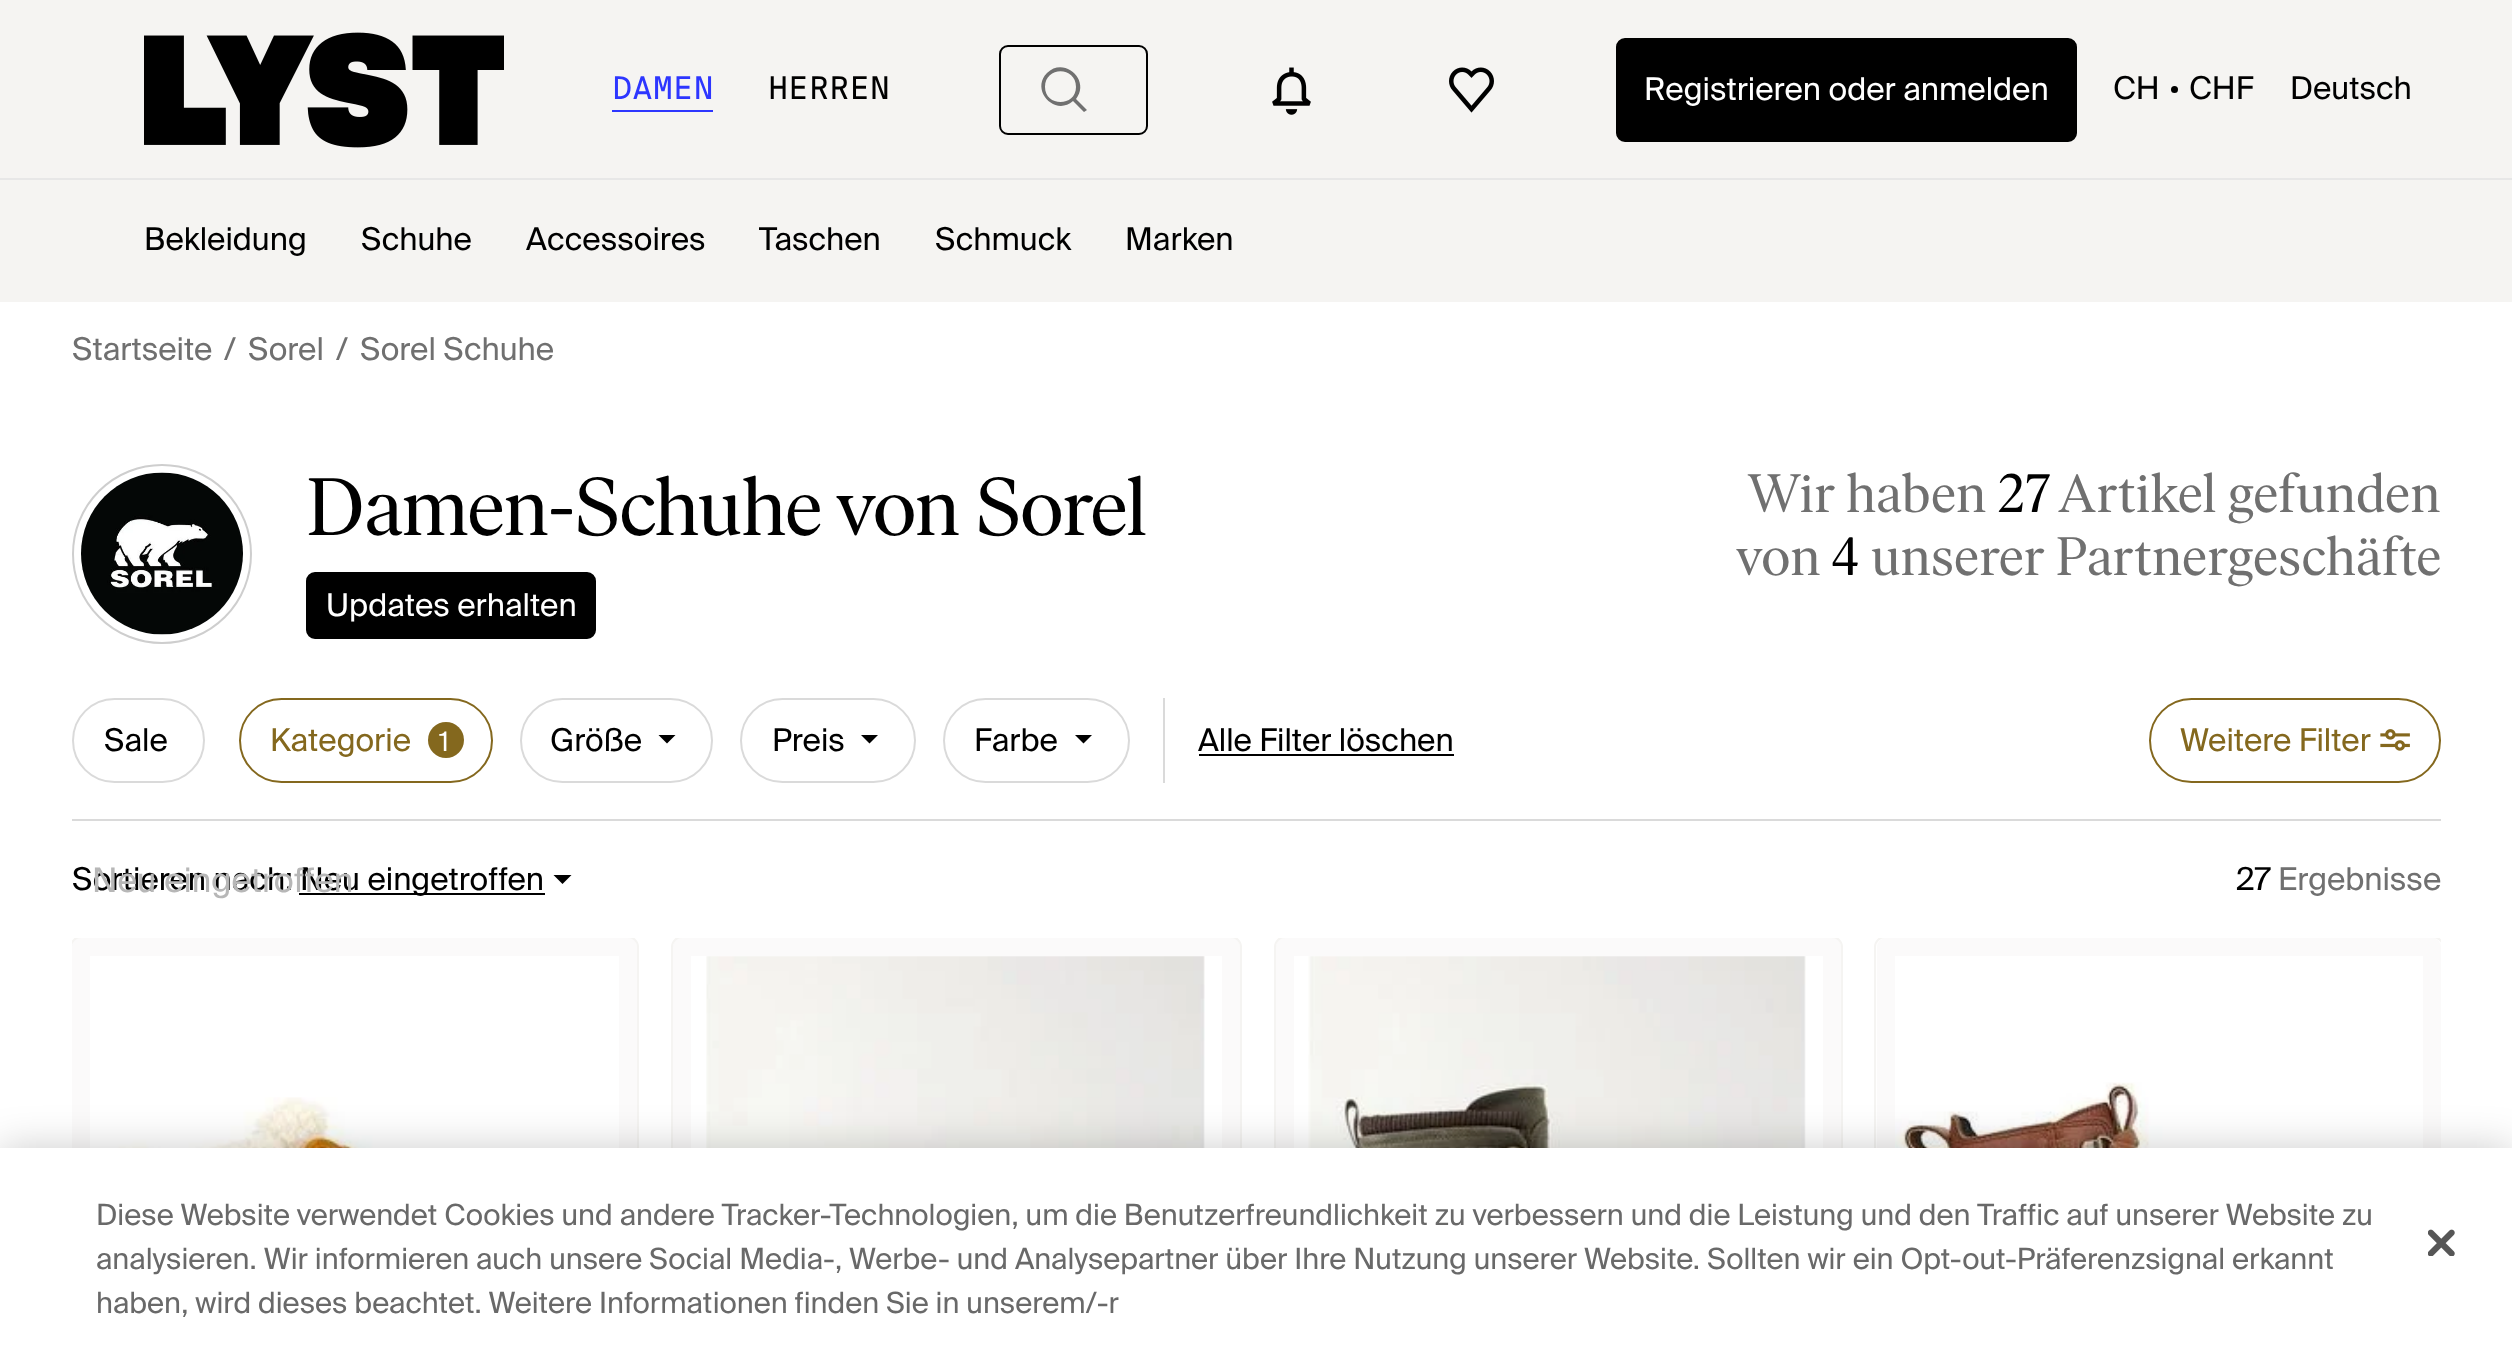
<!DOCTYPE html>
<meta charset="utf-8">
<style>body { margin: 0 } canvas { display: block }</style>
<canvas id="canvas" width="2512" height="1346"></canvas>
<img id="img1" src="images/1.png" hidden>
<img id="img2" src="images/2.png" hidden>
<img id="img3" src="images/3.png" hidden>
<img id="img4" src="images/4.png" hidden>
<img id="img5" src="images/5.png" hidden>
<img id="img6" src="images/6.png" hidden>
<img id="img7" src="images/7.png" hidden>
<img id="img8" src="images/8.png" hidden>
<img id="img9" src="images/9.png" hidden>
<img id="img10" src="images/10.png" hidden>
<script>
window.onload = function () {
    const canvas = document.getElementById('canvas');
    const context = canvas.getContext('2d');
    context.miterLimit = 4;
    context.fontKerning = 'normal';

    context.fillStyle = 'rgb(255, 255, 255)';
    context.fillRect(0, 0, 2512, 1346);
    context.fillStyle = 'rgb(245, 244, 242)';
    context.fillRect(0, 0, 2512, 302);
    context.fillStyle = 'rgb(231, 231, 231)';
    context.fillRect(0, 178, 2512, 2);
    context.drawImage(document.getElementById('img1'), 144, 32, 360, 116);
    context.fillStyle = 'rgb(45, 54, 255)';
    context.fillRect(612, 110, 101, 2);
    context.beginPath();
    context.roundRect(1000, 46, 147, 88, 8);
    context.strokeStyle = 'rgb(0, 0, 0)';
    context.lineWidth = 2;
    context.stroke();
    context.fillStyle = 'rgb(112, 112, 112)';
    context.beginPath();
    context.moveTo(1076, 87);
    context.bezierCurveTo(1076, 107, 1045, 107, 1045, 87);
    context.bezierCurveTo(1045, 66, 1076, 66, 1076, 87);
    context.closePath();
    context.moveTo(1073, 101);
    context.bezierCurveTo(1055, 117, 1030, 90, 1047, 73);
    context.bezierCurveTo(1064, 56, 1091, 80, 1076, 99);
    context.lineTo(1087, 110);
    context.lineTo(1084, 112);
    context.closePath();
    context.fill('evenodd');
    context.drawImage(document.getElementById('img2'), 1272, 67, 39, 48);
    context.drawImage(document.getElementById('img3'), 1449, 67, 45, 46);
    context.fillStyle = 'rgb(0, 0, 0)';
    context.beginPath();
    context.roundRect(1617, 39, 459, 102, 8);
    context.fill();
    context.stroke();
    context.beginPath();
    context.arc(2174.5, 89.5, 3.5, 0, 2 * Math.PI);
    context.fill();
    context.beginPath();
    context.arc(162, 554, 89, 0, 2 * Math.PI);
    context.strokeStyle = 'rgb(206, 206, 206)';
    context.stroke();
    context.drawImage(document.getElementById('img4'), 81, 472, 162, 163);
    context.beginPath();
    context.roundRect(307, 573, 288, 65, 8);
    context.fill();
    context.strokeStyle = 'rgb(0, 0, 0)';
    context.stroke();
    context.fillStyle = 'rgb(218, 218, 218)';
    context.fillRect(72, 819, 2369, 2);
    context.beginPath();
    context.roundRect(73, 699, 131, 83, 41.5);
    context.strokeStyle = 'rgb(218, 218, 218)';
    context.stroke();
    context.fillRect(1163, 698, 2, 85);
    context.beginPath();
    context.roundRect(240, 699, 252, 83, 41.5);
    context.strokeStyle = 'rgb(132, 104, 30)';
    context.stroke();
    context.fillStyle = 'rgb(132, 104, 30)';
    context.beginPath();
    context.arc(446, 740, 18, 0, 2 * Math.PI);
    context.fill();
    context.beginPath();
    context.roundRect(521, 699, 191, 83, 41.5);
    context.strokeStyle = 'rgb(218, 218, 218)';
    context.stroke();
    context.fillStyle = 'rgb(0, 0, 0)';
    context.beginPath();
    context.moveTo(675.5, 735);
    context.lineTo(658.5, 735);
    context.lineTo(667, 743.5);
    context.closePath();
    context.fill('evenodd');
    context.beginPath();
    context.roundRect(741, 699, 174, 83, 41.5);
    context.stroke();
    context.beginPath();
    context.moveTo(878, 735);
    context.lineTo(861, 735);
    context.lineTo(869.5, 743.5);
    context.closePath();
    context.fill('evenodd');
    context.beginPath();
    context.roundRect(944, 699, 185, 83, 41.5);
    context.stroke();
    context.beginPath();
    context.moveTo(1092, 735);
    context.lineTo(1075, 735);
    context.lineTo(1083.5, 743.5);
    context.closePath();
    context.fill('evenodd');
    context.fillRect(1199, 754, 255, 2);
    context.beginPath();
    context.roundRect(2150, 699, 290, 83, 41.5);
    context.strokeStyle = 'rgb(132, 104, 30)';
    context.stroke();
    context.drawImage(document.getElementById('img5'), 2380, 729, 30, 22);
    context.fillRect(299, 893, 246, 2);
    context.beginPath();
    context.moveTo(553.5, 875);
    context.lineTo(571.5, 875);
    context.lineTo(562.5, 884);
    context.closePath();
    context.fill();
    context.fillStyle = 'rgb(251, 250, 250)';
    context.beginPath();
    context.roundRect(72, 938, 565, 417, 9);
    context.fill();
    context.fillStyle = 'rgb(255, 255, 255)';
    context.fillRect(90, 956, 529, 192);
    context.drawImage(document.getElementById('img6'), 90, 1097, 507, 51);
    context.save();
    context.beginPath();
    context.rect(72, 938, 2369, 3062);
    context.clip();
    context.beginPath();
    context.roundRect(71, 937, 567, 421, 10);
    context.strokeStyle = 'rgb(245, 244, 242)';
    context.stroke();
    context.restore();
    context.fillStyle = 'rgb(251, 250, 250)';
    context.beginPath();
    context.roundRect(673, 938, 567, 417, 9);
    context.fill();
    context.fillStyle = 'rgb(255, 255, 255)';
    context.fillRect(691, 956, 531, 192);
    context.drawImage(document.getElementById('img7'), 706, 956, 499, 192);
    context.save();
    context.beginPath();
    context.rect(72, 938, 2369, 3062);
    context.clip();
    context.beginPath();
    context.roundRect(672, 937, 569, 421, 10);
    context.strokeStyle = 'rgb(245, 244, 242)';
    context.stroke();
    context.restore();
    context.fillStyle = 'rgb(251, 250, 250)';
    context.beginPath();
    context.roundRect(1276, 938, 565, 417, 9);
    context.fill();
    context.fillStyle = 'rgb(255, 255, 255)';
    context.fillRect(1294, 956, 529, 192);
    context.drawImage(document.getElementById('img8'), 1308, 956, 498, 192);
    context.save();
    context.beginPath();
    context.rect(72, 938, 2369, 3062);
    context.clip();
    context.beginPath();
    context.roundRect(1275, 937, 567, 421, 10);
    context.strokeStyle = 'rgb(245, 244, 242)';
    context.stroke();
    context.restore();
    context.fillStyle = 'rgb(251, 250, 250)';
    context.beginPath();
    context.roundRect(1877, 938, 564, 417, 9);
    context.fill();
    context.fillStyle = 'rgb(255, 255, 255)';
    context.fillRect(1895, 956, 528, 192);
    context.drawImage(document.getElementById('img9'), 1895, 1082, 495, 66);
    context.save();
    context.beginPath();
    context.rect(72, 938, 2369, 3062);
    context.clip();
    context.beginPath();
    context.roundRect(1875, 937, 568, 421, 10);
    context.strokeStyle = 'rgb(245, 244, 242)';
    context.stroke();
    context.restore();
    context.fillStyle = 'rgba(0, 0, 0, 0.2)';
    context.filter = 'blur(20px)';
    context.beginPath();
    context.rect(0, 1148, 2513, 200);
    context.fill();
    context.filter = 'none';
    context.fillStyle = 'rgb(255, 255, 255)';
    context.fillRect(0, 1148, 2512, 198);
    context.drawImage(document.getElementById('img10'), 2428, 1229, 27, 27);
    context.font = '31.5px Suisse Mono';
    context.fillStyle = 'rgb(45, 54, 255)';
    context.fillText('DAMEN', 612, 99);
    context.fillStyle = 'rgb(0, 0, 0)';
    context.fillText('HERREN', 768, 99);
    context.font = '31.5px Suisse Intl';
    context.fillStyle = 'rgb(255, 255, 255)';
    context.fillText('Registrieren oder anmelden', 1644, 100);
    context.fillStyle = 'rgb(0, 0, 0)';
    context.fillText('CH', 2113, 99);
    context.fillText('CHF', 2189, 99);
    context.fillText('Deutsch', 2290, 99);
    context.fillText('Bekleidung', 144, 250);
    context.fillText('Schuhe', 361, 250);
    context.fillText('Accessoires', 526, 250);
    context.fillText('Taschen', 759, 250);
    context.fillText('Schmuck', 935, 250);
    context.fillText('Marken', 1125, 250);
    context.fillStyle = 'rgb(112, 112, 112)';
    context.fillText('Startseite', 72, 360);
    context.fillText('/', 224, 360);
    context.fillText('Sorel', 248, 360);
    context.fillText('/', 336, 360);
    context.fillText('Sorel Schuhe', 360, 360);
    context.letterSpacing = '-0.6px';
    context.font = '81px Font';
    context.fillStyle = 'rgb(0, 0, 0)';
    context.fillText('Damen-Schuhe von Sorel', 306, 535);
    context.letterSpacing = '0px';
    context.font = '31.5px Suisse Intl';
    context.fillStyle = 'rgb(255, 255, 255)';
    context.fillText('Updates erhalten', 326, 616);
    context.letterSpacing = '0.45px';
    context.font = '54px Font';
    context.fillStyle = 'rgb(112, 112, 112)';
    context.fillText('Wir haben', 1747, 512);
    context.fillStyle = 'rgb(0, 0, 0)';
    context.fillText('27', 1998, 512);
    context.fillStyle = 'rgb(112, 112, 112)';
    context.fillText('Artikel gefunden', 2058, 512);
    context.fillText('von', 1736, 575);
    context.fillStyle = 'rgb(0, 0, 0)';
    context.fillText('4', 1831, 575);
    context.fillStyle = 'rgb(112, 112, 112)';
    context.fillText('unserer Partnergeschäfte', 1871, 575);
    context.letterSpacing = '0px';
    context.font = '31.5px Suisse Intl';
    context.fillStyle = 'rgb(0, 0, 0)';
    context.fillText('Sale', 104, 751);
    context.fillStyle = 'rgb(132, 104, 30)';
    context.fillText('Kategorie', 270, 751);
    context.font = '27px Suisse Intl';
    context.fillStyle = 'rgb(255, 255, 255)';
    context.fillText('1', 439, 751);
    context.font = '31.5px Suisse Intl';
    context.fillStyle = 'rgb(0, 0, 0)';
    context.fillText('Größe', 550, 751);
    context.fillText('Preis', 772, 751);
    context.fillText('Farbe', 974, 751);
    context.fillText('Alle Filter löschen', 1198, 751);
    context.fillStyle = 'rgb(132, 104, 30)';
    context.fillText('Weitere Filter', 2180, 751);
    context.fillStyle = 'rgb(0, 0, 0)';
    context.fillText('Sortieren nach:', 72, 890);
    context.fillText('Neu eingetroffen', 300, 890);
    context.font = '33.75px Suisse Intl';
    context.fillStyle = 'rgb(183, 183, 183)';
    context.fillText('Neu eingetroffen', 92, 892);
    context.font = '31.5px Suisse Intl';
    context.fillStyle = 'rgb(0, 0, 0)';
    context.fillText('27', 2236, 890);
    context.fillStyle = 'rgb(112, 112, 112)';
    context.fillText('Ergebnisse', 2278, 890);
    context.font = '29.27px Suisse Intl';
    context.fillStyle = 'rgb(105, 105, 105)';
    context.fillText('Diese Website verwendet Cookies und andere Tracker-Technologien, um die Benutzerfreundlichkeit zu verbessern und die Leistung und den Traffic auf unserer Website zu', 96, 1225);
    context.fillText('analysieren. Wir informieren auch unsere Social Media-, Werbe- und Analysepartner über Ihre Nutzung unserer Website. Sollten wir ein Opt-out-Präferenzsignal erkannt', 96, 1269);
    context.fillText('haben, wird dieses beachtet. Weitere Informationen finden Sie in unserem/-r', 96, 1313);
};
</script>
